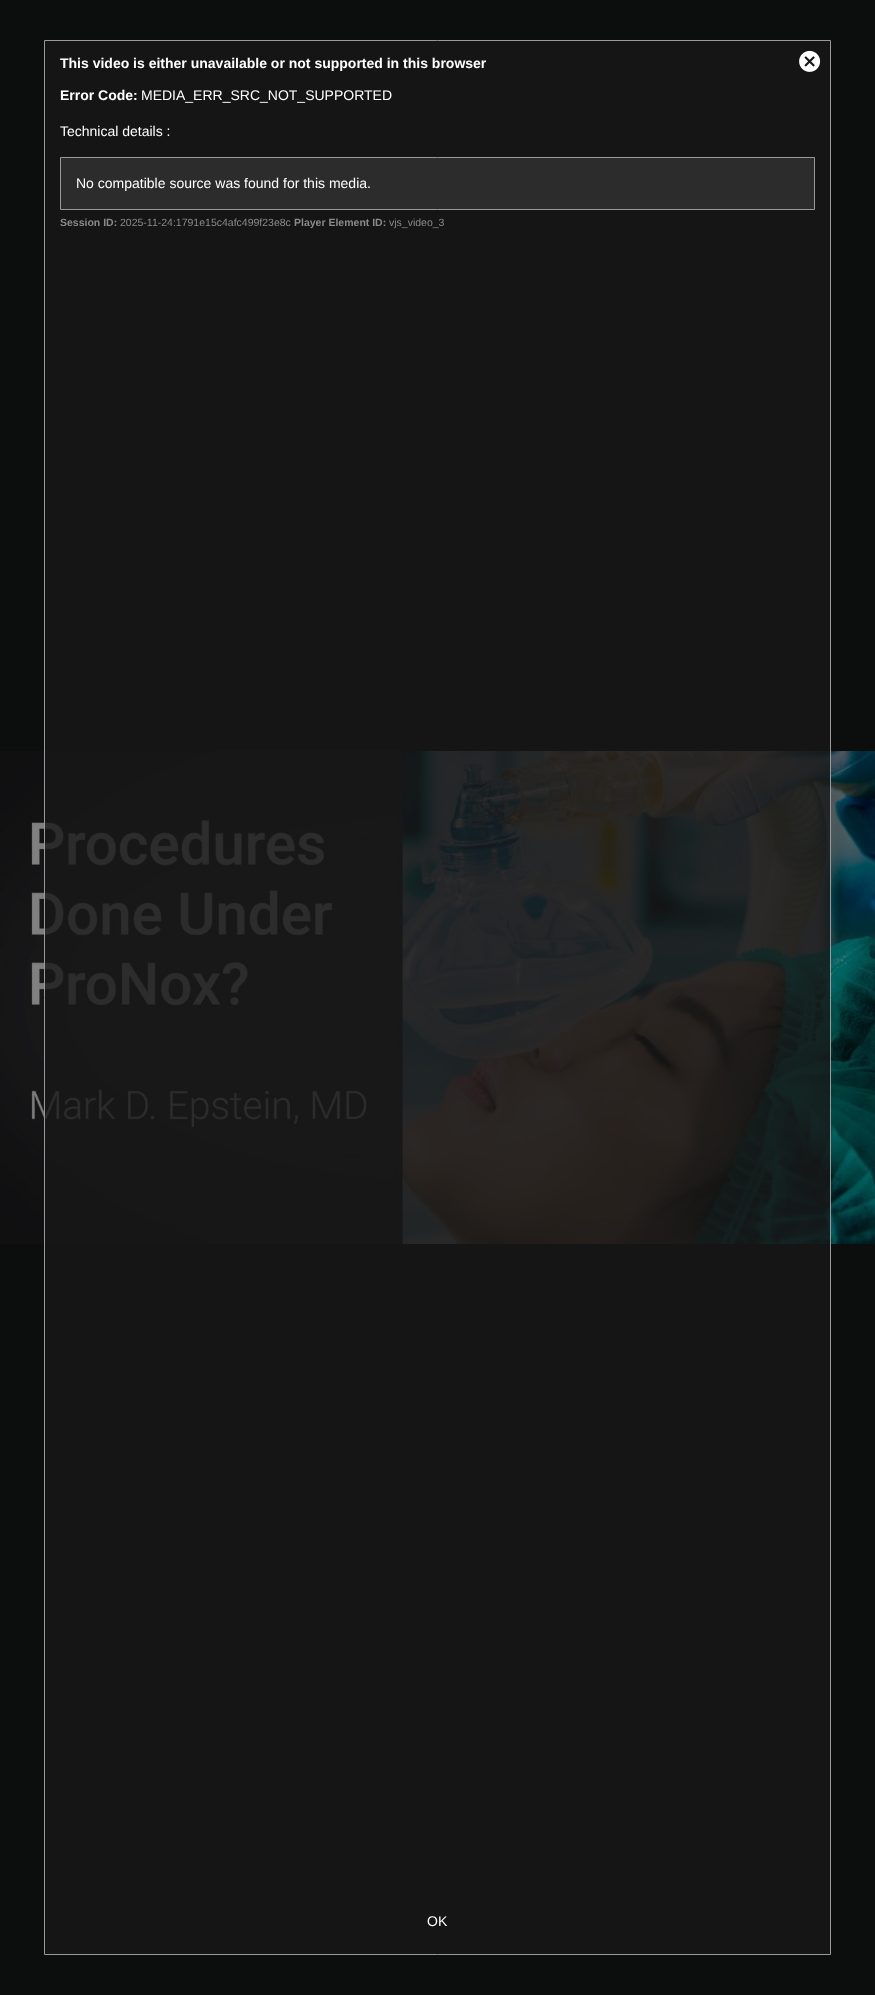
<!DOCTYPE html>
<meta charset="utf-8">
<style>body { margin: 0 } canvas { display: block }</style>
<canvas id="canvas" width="875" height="1995"></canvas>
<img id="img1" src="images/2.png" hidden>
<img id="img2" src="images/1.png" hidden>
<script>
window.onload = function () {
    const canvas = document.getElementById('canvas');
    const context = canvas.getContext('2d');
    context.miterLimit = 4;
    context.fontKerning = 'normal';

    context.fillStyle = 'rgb(11, 14, 12)';
    context.fillRect(0, 0, 875, 1995);
    context.drawImage(document.getElementById('img1'), 0, 751, 875, 493);
    context.fillStyle = 'rgba(24, 24, 24, 0.8)';
    context.beginPath();
    context.rect(44.5, 40.5, 786, 1914);
    context.fill();
    context.strokeStyle = 'rgb(153, 153, 153)';
    context.stroke();
    context.fillStyle = 'rgb(44, 44, 44)';
    context.beginPath();
    context.rect(60.5, 157.5, 754, 52);
    context.fill();
    context.stroke();
    context.drawImage(document.getElementById('img2'), 799, 50, 22, 22);
    context.font = 'bold 14px Liberation Sans';
    context.fillStyle = 'rgb(255, 255, 255)';
    context.fillText('This video is either unavailable or not supported in this browser', 60, 68);
    context.fillText('Error Code:', 60, 100);
    context.font = '14px Liberation Sans';
    context.fillText('MEDIA_ERR_SRC_NOT_SUPPORTED', 141, 100);
    context.fillText('Technical details :', 60, 136);
    context.fillText('No compatible source was found for this media.', 76, 188);
    context.font = 'bold 10.5px Liberation Sans';
    context.fillStyle = 'rgb(138, 138, 138)';
    context.fillText('Session ID:', 60, 226);
    context.font = '10.5px Liberation Sans';
    context.fillText('2025-11-24:1791e15c4afc499f23e8c', 120, 226);
    context.font = 'bold 10.5px Liberation Sans';
    context.fillText('Player Element ID:', 294, 226);
    context.font = '10.5px Liberation Sans';
    context.fillText('vjs_video_3', 389, 226);
    context.font = '14px Liberation Sans';
    context.fillStyle = 'rgb(255, 255, 255)';
    context.fillText('OK', 427, 1926);
};
</script>
